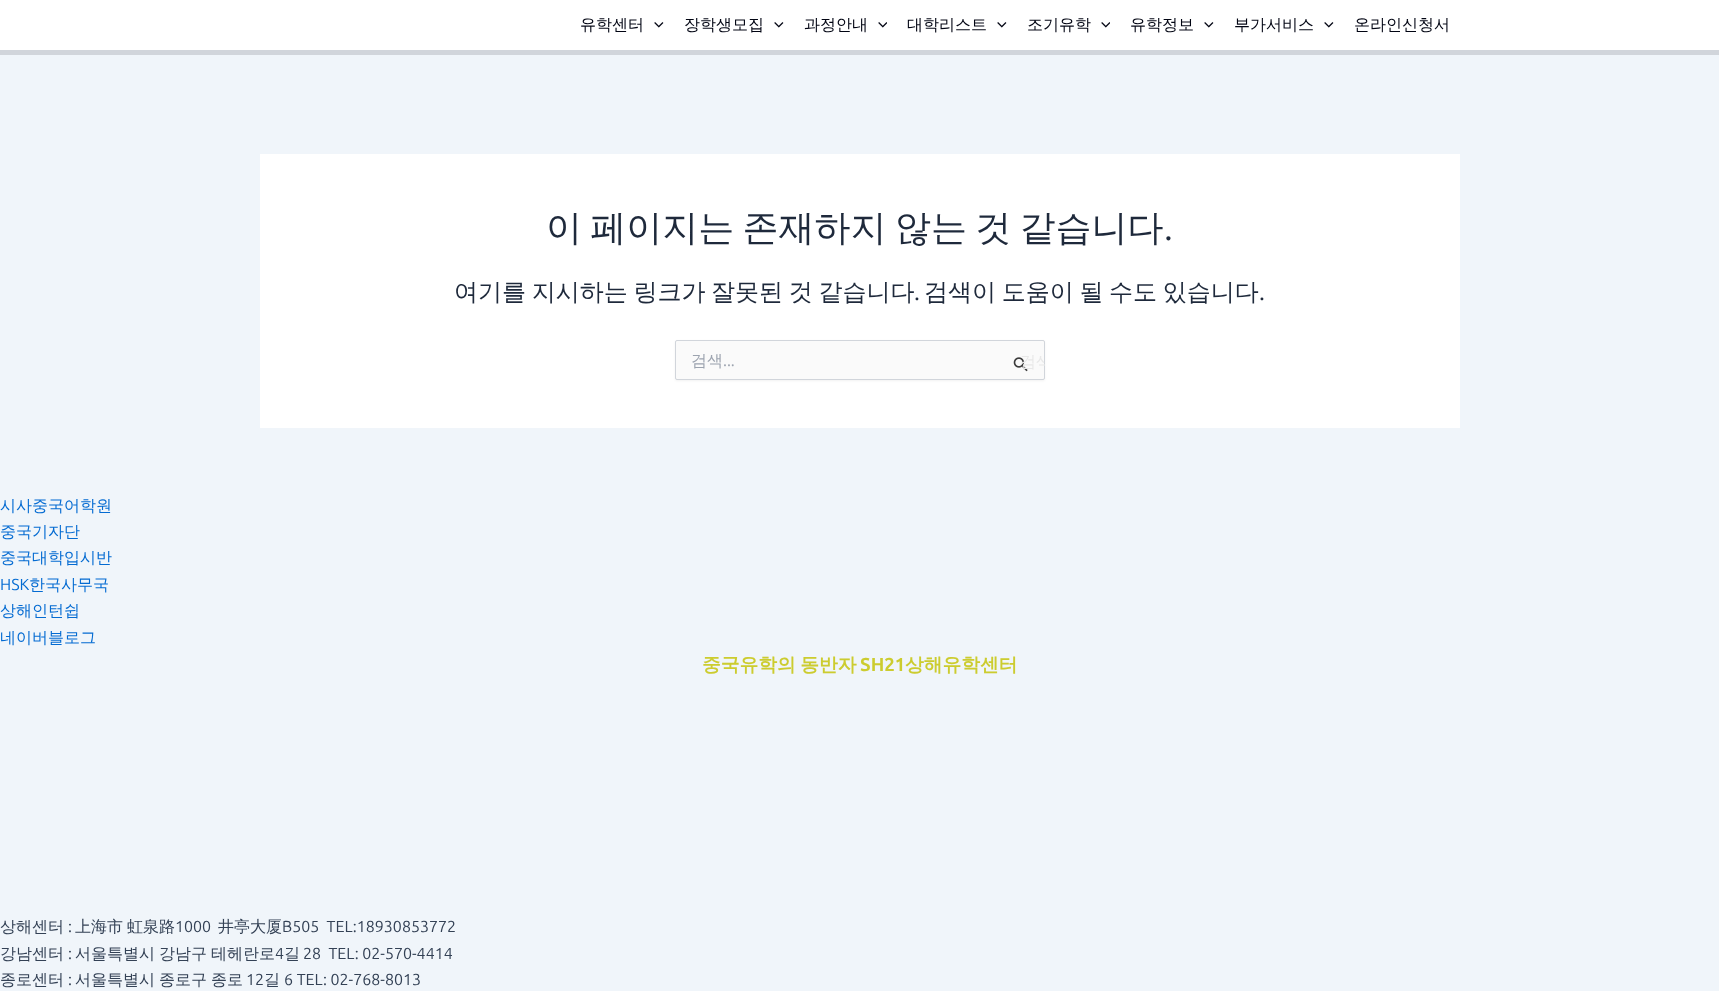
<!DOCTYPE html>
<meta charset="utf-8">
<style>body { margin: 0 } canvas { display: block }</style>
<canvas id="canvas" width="1719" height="991"></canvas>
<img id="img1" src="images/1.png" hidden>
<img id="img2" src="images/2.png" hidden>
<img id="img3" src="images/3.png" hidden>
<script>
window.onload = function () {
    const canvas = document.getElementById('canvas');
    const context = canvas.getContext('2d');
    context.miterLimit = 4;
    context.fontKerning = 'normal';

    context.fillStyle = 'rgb(240, 245, 250)';
    context.fillRect(0, 0, 1719, 991);
    context.fillStyle = 'rgb(255, 255, 255)';
    context.fillRect(0, 0, 1719, 50);
    context.fillStyle = 'rgb(209, 213, 219)';
    context.fillRect(0, 50, 1719, 5);
    context.drawImage(document.getElementById('img1'), 654, 22, 10, 6);
    context.drawImage(document.getElementById('img1'), 774, 22, 10, 6);
    context.drawImage(document.getElementById('img2'), 878, 22, 9, 6);
    context.drawImage(document.getElementById('img1'), 997, 22, 10, 6);
    context.drawImage(document.getElementById('img2'), 1101, 22, 9, 6);
    context.drawImage(document.getElementById('img1'), 1204, 22, 10, 6);
    context.drawImage(document.getElementById('img1'), 1324, 22, 10, 6);
    context.fillStyle = 'rgb(255, 255, 255)';
    context.fillRect(260, 154, 1200, 274);
    context.fillStyle = 'rgba(0, 0, 0, 0.05)';
    context.filter = 'blur(1px)';
    context.beginPath();
    context.roundRect(675, 341, 370, 40, 2);
    context.fill();
    context.filter = 'none';
    context.fillStyle = 'rgb(250, 250, 250)';
    context.beginPath();
    context.roundRect(675.5, 340.5, 369, 39, 1.5);
    context.fill();
    context.strokeStyle = 'rgb(209, 213, 219)';
    context.stroke();
    context.drawImage(document.getElementById('img3'), 1013, 357, 15, 15);
    context.font = '500 16px WenQuanYi Zen Hei';
    context.fillStyle = 'rgb(1, 4, 18)';
    context.fillText('유학센터', 580, 30);
    context.fillText('장학생모집', 684, 30);
    context.fillText('과정안내', 804, 30);
    context.fillText('대학리스트', 907, 30);
    context.fillText('조기유학', 1027, 30);
    context.fillText('유학정보', 1130, 30);
    context.fillText('부가서비스', 1234, 30);
    context.fillText('온라인신청서', 1354, 30);
    context.wordSpacing = '-2.5px';
    context.font = '500 36px WenQuanYi Zen Hei';
    context.fillStyle = 'rgb(30, 41, 59)';
    context.fillText('이 페이지는 존재하지 않는 것 같습니다', 546, 240);
    context.wordSpacing = '0px';
    context.font = '36px Ubuntu';
    context.fillText('.', 1164, 240);
    context.wordSpacing = '-1.5px';
    context.font = '500 24px WenQuanYi Zen Hei';
    context.fillText('여기를 지시하는 링크가 잘못된 것 같습니다', 454, 300);
    context.wordSpacing = '0px';
    context.font = '24px Ubuntu';
    context.fillText('.', 914, 300);
    context.wordSpacing = '-1.5px';
    context.font = '500 24px WenQuanYi Zen Hei';
    context.fillText('검색이 도움이 될 수도 있습니다', 924, 300);
    context.wordSpacing = '0px';
    context.font = '24px Ubuntu';
    context.fillText('.', 1259, 300);
    context.font = '500 16px WenQuanYi Zen Hei';
    context.fillStyle = 'rgb(156, 163, 175)';
    context.fillText('검색', 691, 366);
    context.font = '16px Ubuntu';
    context.fillText('...', 723, 366);
    context.save();
    context.beginPath();
    context.roundRect(1000, 340, 45, 42, 2);
    context.clip();
    context.font = '500 16px WenQuanYi Zen Hei';
    context.fillStyle = 'rgb(232, 232, 232)';
    context.fillText('검색', 1020, 367);
    context.restore();
    context.font = '500 16px WenQuanYi Zen Hei';
    context.fillStyle = 'rgb(4, 107, 210)';
    context.fillText('시사중국어학원', 0, 511);
    context.fillText('중국기자단', 0, 537);
    context.fillText('중국대학입시반', 0, 563);
    context.font = '16px Ubuntu';
    context.fillText('HSK', 0, 590);
    context.font = '500 16px WenQuanYi Zen Hei';
    context.fillText('한국사무국', 29, 590);
    context.fillText('상해인턴쉽', 0, 616);
    context.fillText('네이버블로그', 0, 643);
    context.wordSpacing = '-1px';
    context.font = 'bold 18.75px WenQuanYi Zen Hei';
    context.fillStyle = 'rgb(204, 204, 47)';
    context.fillText('중국유학의 동반자', 702, 671);
    context.wordSpacing = '0px';
    context.font = 'bold 18.75px Ubuntu';
    context.fillText('SH21', 860, 671);
    context.font = 'bold 18.75px WenQuanYi Zen Hei';
    context.fillText('상해유학센터', 905, 671);
    context.font = '500 16px WenQuanYi Zen Hei';
    context.fillStyle = 'rgb(51, 65, 85)';
    context.fillText('상해센터', 0, 932);
    context.font = '16px Ubuntu';
    context.fillText(':', 68, 932);
    context.font = '500 16px WenQuanYi Zen Hei';
    context.fillText('上海市', 75, 932);
    context.fillText('虹泉路', 127, 932);
    context.font = '16px Ubuntu';
    context.fillText('1000', 175, 932);
    context.font = '500 16px WenQuanYi Zen Hei';
    context.fillText('井亭大厦', 218, 932);
    context.font = '16px Ubuntu';
    context.fillText('B505  TEL:18930853772', 282, 932);
    context.font = '500 16px WenQuanYi Zen Hei';
    context.fillText('강남센터', 0, 959);
    context.font = '16px Ubuntu';
    context.fillText(':', 68, 959);
    context.font = '500 16px WenQuanYi Zen Hei';
    context.fillText('서울특별시', 75, 959);
    context.fillText('강남구', 159, 959);
    context.fillText('테헤란로', 211, 959);
    context.font = '16px Ubuntu';
    context.fillText('4', 275, 959);
    context.font = '500 16px WenQuanYi Zen Hei';
    context.fillText('길', 284, 959);
    context.font = '16px Ubuntu';
    context.fillText('28  TEL: 02-570-4414', 303, 959);
    context.font = '500 16px WenQuanYi Zen Hei';
    context.fillText('종로센터', 0, 985);
    context.font = '16px Ubuntu';
    context.fillText(':', 68, 985);
    context.font = '500 16px WenQuanYi Zen Hei';
    context.fillText('서울특별시', 75, 985);
    context.fillText('종로구', 159, 985);
    context.fillText('종로', 211, 985);
    context.font = '16px Ubuntu';
    context.fillText('12', 246, 985);
    context.font = '500 16px WenQuanYi Zen Hei';
    context.fillText('길', 264, 985);
    context.font = '16px Ubuntu';
    context.fillText('6 TEL: 02-768-8013', 284, 985);
};
</script>
